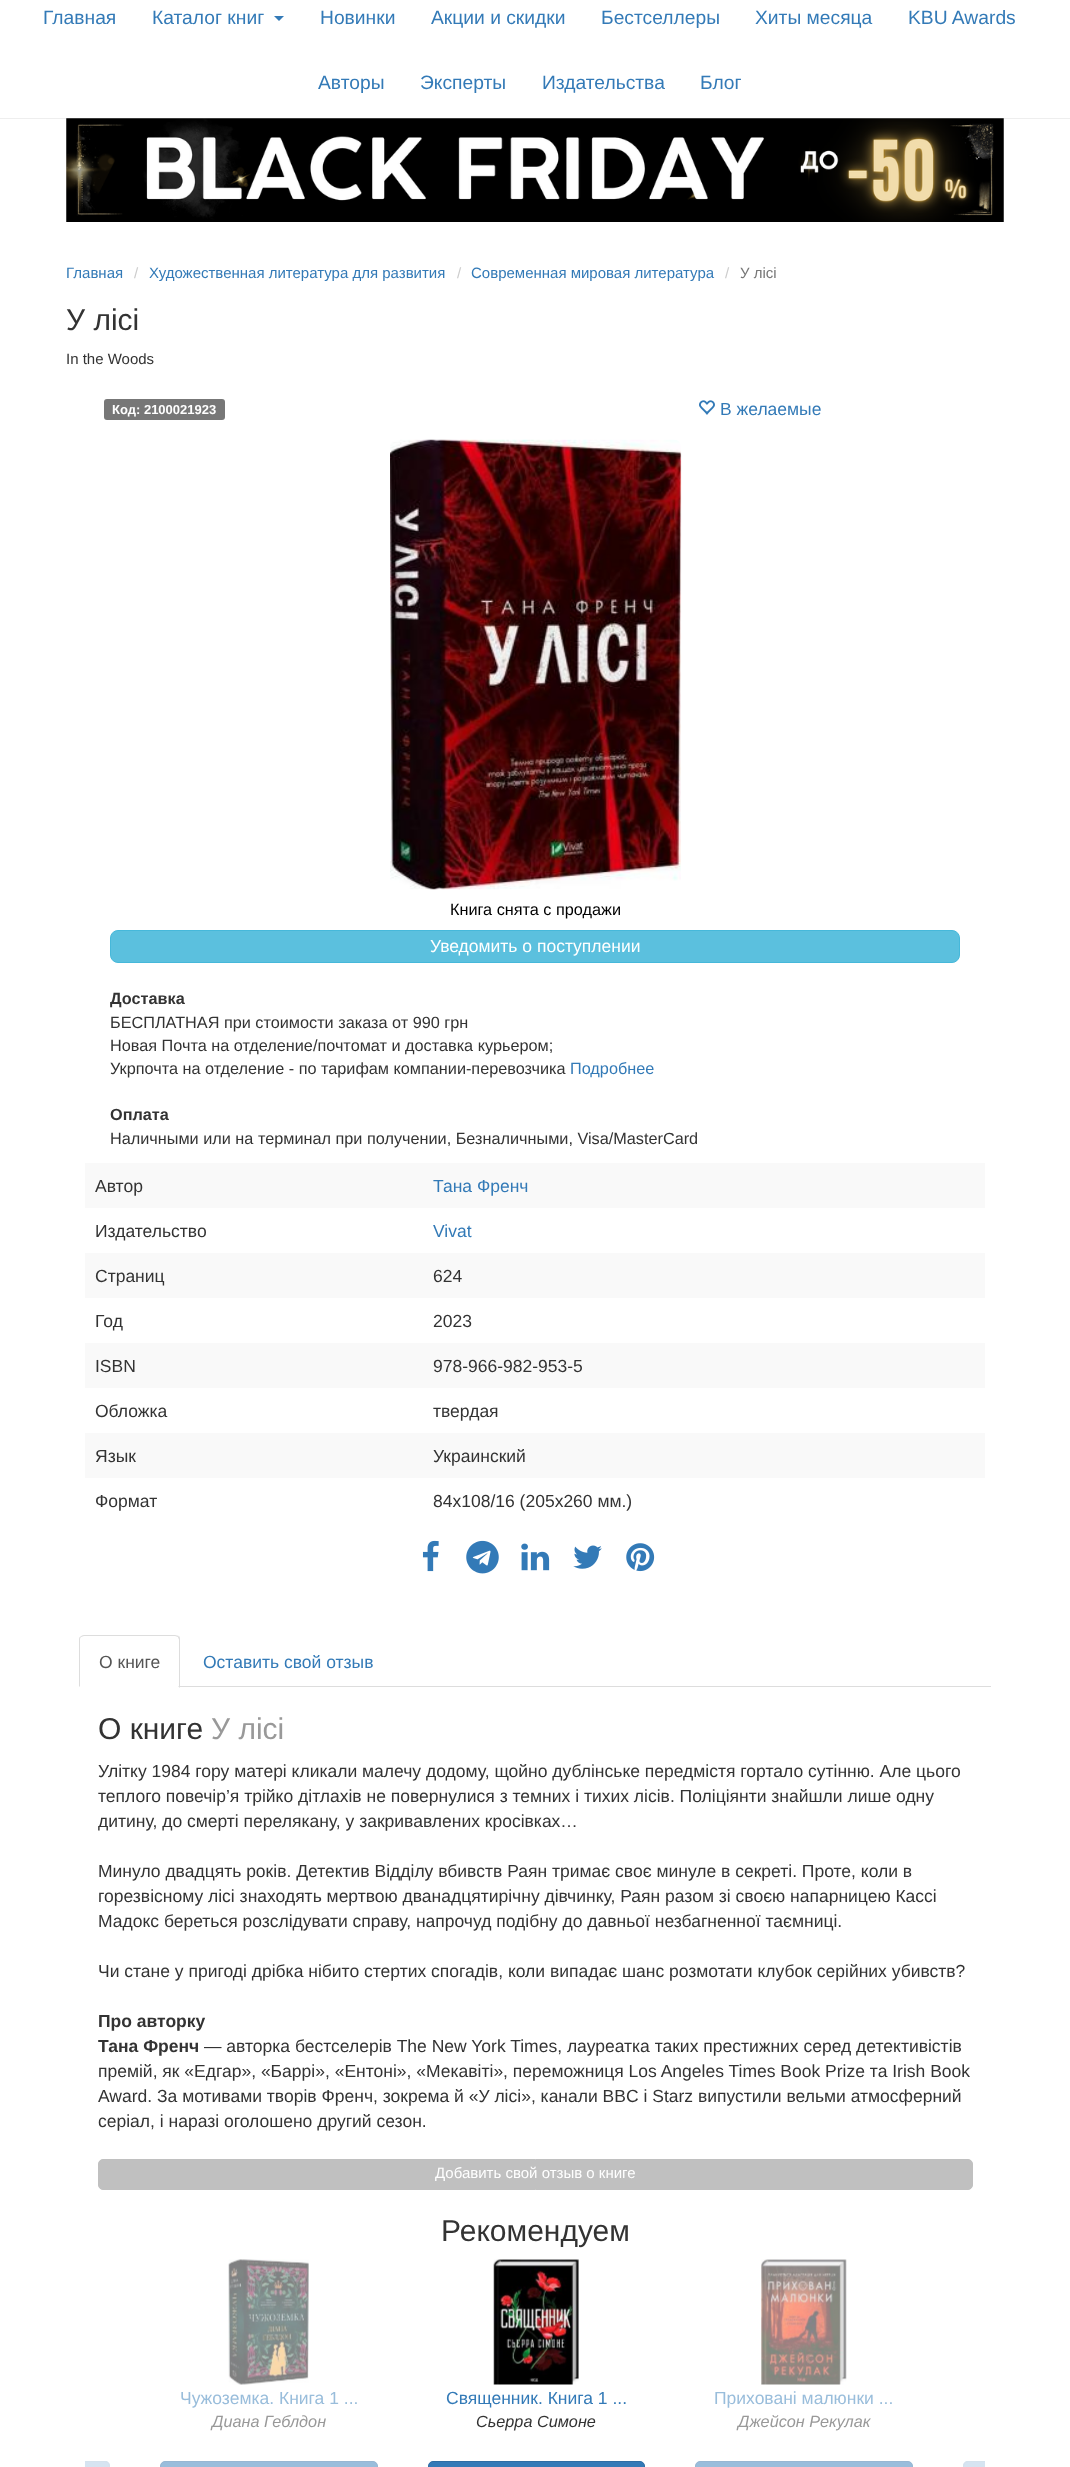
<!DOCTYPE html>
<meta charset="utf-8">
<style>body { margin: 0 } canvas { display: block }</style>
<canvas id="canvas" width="1070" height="2467"></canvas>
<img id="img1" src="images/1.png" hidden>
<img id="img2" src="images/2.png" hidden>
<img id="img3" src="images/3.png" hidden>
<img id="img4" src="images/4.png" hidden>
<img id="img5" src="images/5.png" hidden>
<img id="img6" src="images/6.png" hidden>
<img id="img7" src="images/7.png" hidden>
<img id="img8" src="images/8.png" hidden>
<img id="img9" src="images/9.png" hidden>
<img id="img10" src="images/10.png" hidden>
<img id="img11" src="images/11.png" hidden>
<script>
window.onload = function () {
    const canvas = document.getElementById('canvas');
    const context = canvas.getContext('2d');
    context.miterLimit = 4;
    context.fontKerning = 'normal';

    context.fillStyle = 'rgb(255, 255, 255)';
    context.fillRect(0, 0, 1070, 2467);
    context.fillStyle = 'rgb(51, 122, 183)';
    context.beginPath();
    context.moveTo(274, 16);
    context.lineTo(284, 16);
    context.lineTo(279, 21);
    context.closePath();
    context.fill();
    context.fillStyle = 'rgb(238, 238, 238)';
    context.fillRect(0, 118, 1070, 1);
    context.drawImage(document.getElementById('img1'), 66, 118, 938, 104);
    context.fillStyle = 'rgb(119, 119, 119)';
    context.beginPath();
    context.roundRect(104, 399, 121, 21, 3);
    context.fill();
    context.drawImage(document.getElementById('img2'), 699, 400, 16, 15);
    context.drawImage(document.getElementById('img3'), 390, 439, 292, 451);
    context.fillStyle = 'rgb(91, 192, 222)';
    context.beginPath();
    context.roundRect(110.5, 930.5, 849, 32, 7.5);
    context.fill();
    context.strokeStyle = 'rgb(70, 184, 218)';
    context.stroke();
    context.fillStyle = 'rgb(249, 249, 249)';
    context.fillRect(85, 1163, 900, 45);
    context.fillRect(85, 1253, 900, 45);
    context.fillRect(85, 1343, 900, 45);
    context.fillRect(85, 1433, 900, 45);
    context.drawImage(document.getElementById('img4'), 422, 1540, 17, 32);
    context.drawImage(document.getElementById('img5'), 466, 1540, 33, 34);
    context.drawImage(document.getElementById('img6'), 521, 1543, 29, 28);
    context.drawImage(document.getElementById('img7'), 573, 1545, 29, 24);
    context.drawImage(document.getElementById('img8'), 626, 1543, 29, 29);
    context.fillStyle = 'rgb(221, 221, 221)';
    context.fillRect(180, 1686, 811, 1);
    context.beginPath();
    context.moveTo(84, 1635);
    context.bezierCurveTo(82, 1635, 81, 1636, 80, 1637);
    context.lineTo(81, 1637);
    context.lineTo(84, 1636);
    context.lineTo(175, 1636);
    context.lineTo(178, 1637);
    context.lineTo(179, 1636);
    context.bezierCurveTo(178, 1636, 176, 1635, 175, 1635);
    context.closePath();
    context.fill();
    context.beginPath();
    context.moveTo(180, 1688);
    context.lineTo(180, 1640);
    context.bezierCurveTo(180, 1638, 180, 1637, 179, 1636);
    context.lineTo(178, 1637);
    context.bezierCurveTo(178, 1638, 179, 1639, 179, 1640);
    context.lineTo(179, 1686);
    context.lineTo(178, 1686);
    context.closePath();
    context.fill();
    context.beginPath();
    context.moveTo(80, 1637);
    context.bezierCurveTo(79, 1637, 79, 1639, 79, 1640);
    context.lineTo(79, 1687);
    context.lineTo(80, 1686);
    context.lineTo(80, 1640);
    context.bezierCurveTo(80, 1639, 80, 1638, 81, 1637);
    context.closePath();
    context.fill();
    context.fillStyle = 'rgb(192, 192, 192)';
    context.beginPath();
    context.roundRect(98.5, 2159.5, 874, 30, 4.5);
    context.fill();
    context.strokeStyle = 'rgb(192, 192, 192)';
    context.stroke();
    context.drawImage(document.getElementById('img9'), 228, 2259, 81, 126);
    context.fillStyle = 'rgb(153, 189, 219)';
    context.beginPath();
    context.roundRect(160.5, 2461.5, 217, 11, 4.5);
    context.fill();
    context.strokeStyle = 'rgb(151, 182, 210)';
    context.stroke();
    context.drawImage(document.getElementById('img10'), 493, 2259, 86, 126);
    context.fillStyle = 'rgb(51, 122, 183)';
    context.beginPath();
    context.roundRect(428.5, 2461.5, 216, 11, 4.5);
    context.fill();
    context.strokeStyle = 'rgb(46, 109, 164)';
    context.stroke();
    context.drawImage(document.getElementById('img11'), 761, 2259, 86, 126);
    context.fillStyle = 'rgb(153, 189, 219)';
    context.beginPath();
    context.roundRect(695.5, 2461.5, 217, 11, 4.5);
    context.fill();
    context.strokeStyle = 'rgb(151, 182, 210)';
    context.stroke();
    context.fillStyle = 'rgb(214, 228, 241)';
    context.beginPath();
    context.moveTo(85, 2461);
    context.lineTo(105, 2461);
    context.bezierCurveTo(108, 2461, 110, 2463, 110, 2466);
    context.lineTo(110, 2467);
    context.bezierCurveTo(110, 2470, 108, 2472, 105, 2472);
    context.lineTo(85, 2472);
    context.closePath();
    context.fill();
    context.save();
    context.beginPath();
    context.rect(85, 2260, 900, 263);
    context.clip();
    context.beginPath();
    context.roundRect(-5.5, 2461.5, 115, 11, 4.5);
    context.strokeStyle = 'rgb(213, 226, 237)';
    context.stroke();
    context.restore();
    context.beginPath();
    context.moveTo(968, 2461);
    context.lineTo(985, 2461);
    context.lineTo(985, 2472);
    context.lineTo(968, 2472);
    context.bezierCurveTo(965, 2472, 963, 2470, 963, 2467);
    context.lineTo(963, 2466);
    context.bezierCurveTo(963, 2463, 965, 2461, 968, 2461);
    context.closePath();
    context.fill();
    context.save();
    context.beginPath();
    context.rect(85, 2260, 900, 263);
    context.clip();
    context.beginPath();
    context.roundRect(963.5, 2461.5, 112, 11, 4.5);
    context.strokeStyle = 'rgb(213, 226, 237)';
    context.stroke();
    context.restore();
    context.font = '19.25px Liberation Sans';
    context.fillStyle = 'rgb(51, 122, 183)';
    context.fillText('Главная', 43, 24);
    context.fillText('Каталог книг', 152, 24);
    context.fillText('Новинки', 320, 24);
    context.fillText('Акции и скидки', 431, 24);
    context.fillText('Бестселлеры', 601, 24);
    context.fillText('Хиты месяца', 755, 24);
    context.fillText('KBU Awards', 908, 24);
    context.fillText('Авторы', 318, 89);
    context.fillText('Эксперты', 420, 89);
    context.fillText('Издательства', 542, 89);
    context.fillText('Блог', 700, 89);
    context.font = '15px Liberation Sans';
    context.fillText('Главная', 66, 278);
    context.fillStyle = 'rgb(204, 204, 204)';
    context.fillText('/', 134, 278);
    context.fillStyle = 'rgb(51, 122, 183)';
    context.fillText('Художественная литература для развития', 149, 278);
    context.fillStyle = 'rgb(204, 204, 204)';
    context.fillText('/', 457, 278);
    context.fillStyle = 'rgb(51, 122, 183)';
    context.fillText('Современная мировая литература', 471, 278);
    context.fillStyle = 'rgb(204, 204, 204)';
    context.fillText('/', 725, 278);
    context.fillStyle = 'rgb(119, 119, 119)';
    context.fillText('У лісі', 740, 278);
    context.font = '30px Liberation Sans';
    context.fillStyle = 'rgb(51, 51, 51)';
    context.fillText('У лісі', 66, 330);
    context.font = '15px Liberation Sans';
    context.fillText('In the Woods', 66, 364);
    context.font = 'bold 13px Liberation Sans';
    context.fillStyle = 'rgb(255, 255, 255)';
    context.fillText('Код: 2100021923', 112, 414);
    context.font = '17.5px Liberation Sans';
    context.fillStyle = 'rgb(51, 122, 183)';
    context.fillText('В желаемые', 720, 415);
    context.font = '16.25px Liberation Sans';
    context.fillStyle = 'rgb(0, 0, 0)';
    context.fillText('Книга снята с продажи', 450, 915);
    context.font = '17.5px Liberation Sans';
    context.fillStyle = 'rgb(255, 255, 255)';
    context.fillText('Уведомить о поступлении', 430, 952);
    context.font = 'bold 16.25px Liberation Sans';
    context.fillStyle = 'rgb(51, 51, 51)';
    context.fillText('Доставка', 110, 1004);
    context.font = '16.25px Liberation Sans';
    context.fillText('БЕСПЛАТНАЯ при стоимости заказа от 990 грн', 110, 1028);
    context.fillText('Новая Почта на отделение/почтомат и доставка курьером;', 110, 1051);
    context.fillText('Укрпочта на отделение - по тарифам компании-перевозчика', 110, 1074);
    context.fillStyle = 'rgb(51, 122, 183)';
    context.fillText('Подробнее', 570, 1074);
    context.font = 'bold 16.25px Liberation Sans';
    context.fillStyle = 'rgb(51, 51, 51)';
    context.fillText('Оплата', 110, 1120);
    context.font = '16.25px Liberation Sans';
    context.fillText('Наличными или на терминал при получении, Безналичными, Visa/MasterCard', 110, 1144);
    context.font = '17.5px Liberation Sans';
    context.fillText('Автор', 95, 1192);
    context.fillStyle = 'rgb(51, 122, 183)';
    context.fillText('Тана Френч', 433, 1192);
    context.fillStyle = 'rgb(51, 51, 51)';
    context.fillText('Издательство', 95, 1237);
    context.fillStyle = 'rgb(51, 122, 183)';
    context.fillText('Vivat', 433, 1237);
    context.fillStyle = 'rgb(51, 51, 51)';
    context.fillText('Cтраниц', 95, 1282);
    context.fillText('624', 433, 1282);
    context.fillText('Год', 95, 1327);
    context.fillText('2023', 433, 1327);
    context.fillText('ISBN', 95, 1372);
    context.fillText('978-966-982-953-5', 433, 1372);
    context.fillText('Обложка', 95, 1417);
    context.fillText('твердая', 433, 1417);
    context.fillText('Язык', 95, 1462);
    context.fillText('Украинский', 433, 1462);
    context.fillText('Формат', 95, 1507);
    context.fillText('84х108/16 (205х260 мм.)', 433, 1507);
    context.fillStyle = 'rgb(85, 85, 85)';
    context.fillText('О книге', 99, 1668);
    context.fillStyle = 'rgb(51, 122, 183)';
    context.fillText('Оставить свой отзыв', 203, 1668);
    context.font = '30px Liberation Sans';
    context.fillStyle = 'rgb(51, 51, 51)';
    context.fillText('О книге', 98, 1739);
    context.fillStyle = 'rgb(153, 153, 153)';
    context.fillText('У лісі', 211, 1739);
    context.font = '17.5px Liberation Sans';
    context.fillStyle = 'rgb(51, 51, 51)';
    context.fillText('Улітку 1984 гору матері кликали малечу додому, щойно дублінське передмістя гортало сутінню. Але цього', 98, 1777);
    context.fillText('теплого повечір’я трійко дітлахів не повернулися з темних і тихих лісів. Поліціянти знайшли лише одну', 98, 1802);
    context.fillText('дитину, до смерті перелякану, у закривавлених кросівках…', 98, 1827);
    context.fillText('Минуло двадцять років. Детектив Відділу вбивств Раян тримає своє минуле в секреті. Проте, коли в', 98, 1877);
    context.fillText('горезвісному лісі знаходять мертвою дванадцятирічну дівчинку, Раян разом зі своєю напарницею Кассі', 98, 1902);
    context.fillText('Мадокс береться розслідувати справу, напрочуд подібну до давньої незбагненної таємниці.', 98, 1927);
    context.fillText('Чи стане у пригоді дрібка нібито стертих спогадів, коли випадає шанс розмотати клубок серійних убивств?', 98, 1977);
    context.font = 'bold 17.5px Liberation Sans';
    context.fillText('Про авторку', 98, 2027);
    context.fillText('Тана Френч', 98, 2052);
    context.font = '17.5px Liberation Sans';
    context.fillText('— авторка бестселерів The New York Times, лауреатка таких престижних серед детективістів', 204, 2052);
    context.fillText('премій, як «Едгар», «Баррі», «Ентоні», «Мекавіті», переможниця Los Angeles Times Book Prize та Irish Book', 98, 2077);
    context.fillText('Award. За мотивами творів Френч, зокрема й «У лісі», канали BBC і Starz випустили вельми атмосферний', 98, 2102);
    context.fillText('серіал, і наразі оголошено другий сезон.', 98, 2127);
    context.font = '15px Liberation Sans';
    context.fillStyle = 'rgb(255, 255, 255)';
    context.fillText('Добавить свой отзыв о книге', 435, 2178);
    context.font = '30px Liberation Sans';
    context.fillStyle = 'rgb(51, 51, 51)';
    context.fillText('Рекомендуем', 441, 2241);
    context.font = '17.5px Liberation Sans';
    context.fillStyle = 'rgb(153, 189, 219)';
    context.fillText('Чужоземка. Книга 1 ...', 180, 2404);
    context.font = 'italic 16.25px Liberation Sans';
    context.fillStyle = 'rgb(153, 153, 153)';
    context.fillText('Диана Геблдон', 212, 2427);
    context.font = '17.5px Liberation Sans';
    context.fillStyle = 'rgb(51, 122, 183)';
    context.fillText('Священник. Книга 1 ...', 446, 2404);
    context.font = 'italic 16.25px Liberation Sans';
    context.fillStyle = 'rgb(51, 51, 51)';
    context.fillText('Сьерра Симоне', 476, 2427);
    context.font = '17.5px Liberation Sans';
    context.fillStyle = 'rgb(153, 189, 219)';
    context.fillText('Приховані малюнки ...', 714, 2404);
    context.font = 'italic 16.25px Liberation Sans';
    context.fillStyle = 'rgb(153, 153, 153)';
    context.fillText('Джейсон Рекулак', 738, 2427);
};
</script>
